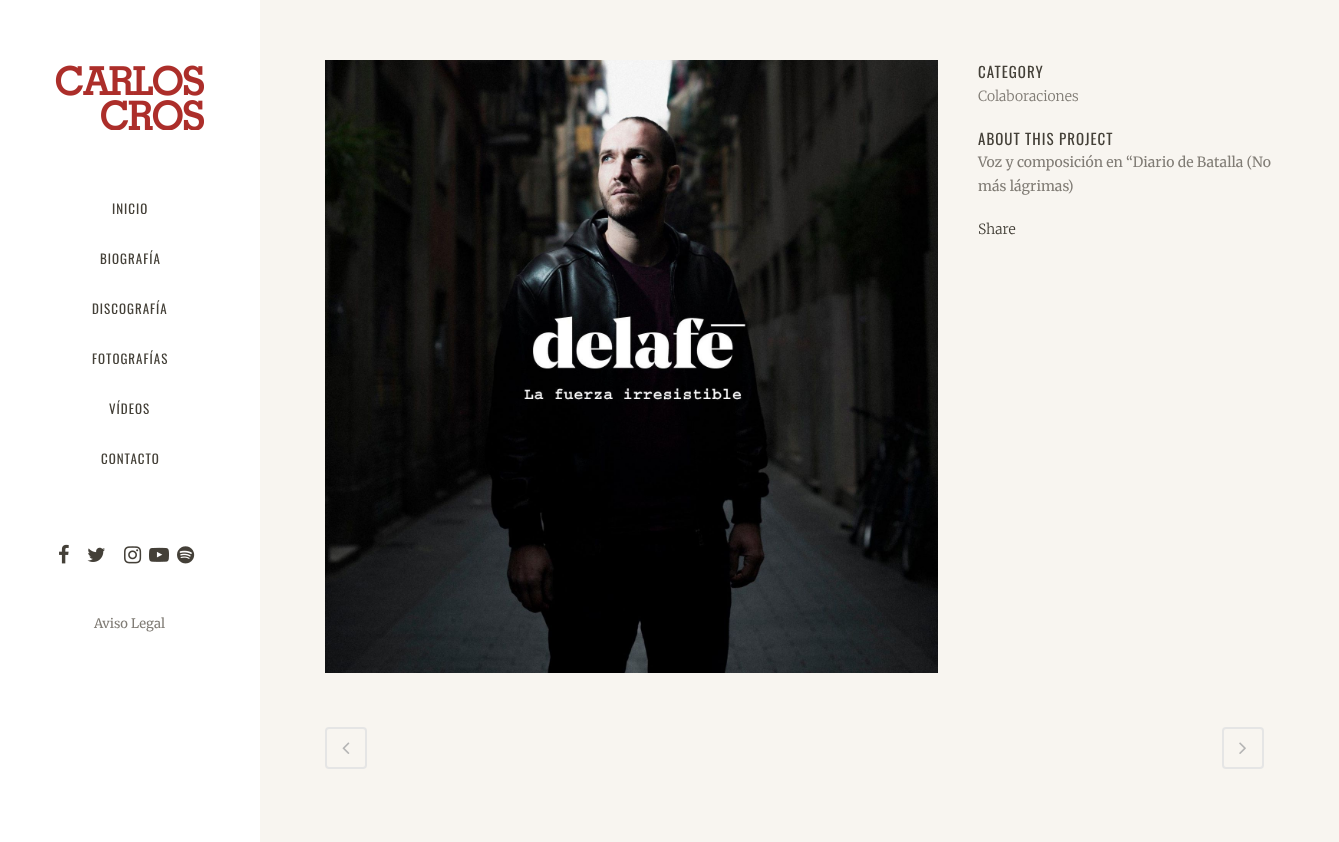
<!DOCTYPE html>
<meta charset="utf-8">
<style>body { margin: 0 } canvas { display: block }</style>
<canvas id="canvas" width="1339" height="842"></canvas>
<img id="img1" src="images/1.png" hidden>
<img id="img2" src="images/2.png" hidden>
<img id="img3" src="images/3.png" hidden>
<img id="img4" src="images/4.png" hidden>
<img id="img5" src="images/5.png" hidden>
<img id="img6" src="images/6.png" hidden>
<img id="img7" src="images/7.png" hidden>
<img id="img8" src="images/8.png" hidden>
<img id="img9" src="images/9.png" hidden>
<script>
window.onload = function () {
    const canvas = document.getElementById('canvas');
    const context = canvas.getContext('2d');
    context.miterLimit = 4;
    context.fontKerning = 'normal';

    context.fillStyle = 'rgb(248, 245, 240)';
    context.fillRect(0, 0, 1339, 842);
    context.drawImage(document.getElementById('img1'), 325, 60, 613, 613);
    context.beginPath();
    context.roundRect(326, 728, 40, 40, 3);
    context.strokeStyle = 'rgb(229, 229, 229)';
    context.lineWidth = 2;
    context.stroke();
    context.drawImage(document.getElementById('img2'), 342, 742, 8, 12);
    context.beginPath();
    context.roundRect(1223, 728, 40, 40, 3);
    context.stroke();
    context.drawImage(document.getElementById('img3'), 1239, 742, 7, 12);
    context.fillStyle = 'rgb(255, 255, 255)';
    context.fillRect(0, 0, 260, 842);
    context.drawImage(document.getElementById('img4'), 55, 65, 149, 65);
    context.drawImage(document.getElementById('img5'), 59, 544, 10, 20);
    context.drawImage(document.getElementById('img6'), 87, 547, 18, 15);
    context.drawImage(document.getElementById('img7'), 124, 546, 18, 18);
    context.drawImage(document.getElementById('img8'), 149, 547, 20, 15);
    context.drawImage(document.getElementById('img9'), 177, 546, 18, 18);
    context.letterSpacing = '1px';
    context.font = '15px Oswald';
    context.fillStyle = 'rgb(68, 64, 56)';
    context.fillText('CATEGORY', 978, 78);
    context.letterSpacing = '0px';
    context.font = '300 14px Merriweather';
    context.fillStyle = 'rgb(128, 124, 117)';
    context.fillText('Colaboraciones', 978, 101);
    context.letterSpacing = '1px';
    context.font = '15px Oswald';
    context.fillStyle = 'rgb(68, 64, 56)';
    context.fillText('ABOUT THIS PROJECT', 978, 145);
    context.letterSpacing = '0px';
    context.font = '14px Merriweather';
    context.fillStyle = 'rgb(128, 124, 117)';
    context.fillText('Voz y composición en “Diario de Batalla (No', 978, 167);
    context.fillText('más lágrimas)', 978, 191);
    context.font = '300 14px Merriweather';
    context.fillStyle = 'rgb(68, 64, 56)';
    context.fillText('Share', 978, 234);
    context.letterSpacing = '1px';
    context.font = '13px Oswald';
    context.fillText('INICIO', 112, 214);
    context.fillText('BIOGRAFÍA', 100, 264);
    context.fillText('DISCOGRAFÍA', 92, 314);
    context.fillText('FOTOGRAFÍAS', 92, 364);
    context.fillText('VÍDEOS', 109, 414);
    context.fillText('CONTACTO', 101, 464);
    context.letterSpacing = '0px';
    context.font = '13px Merriweather';
    context.fillStyle = 'rgb(128, 124, 117)';
    context.fillText('Aviso Legal', 94, 628);
};
</script>
